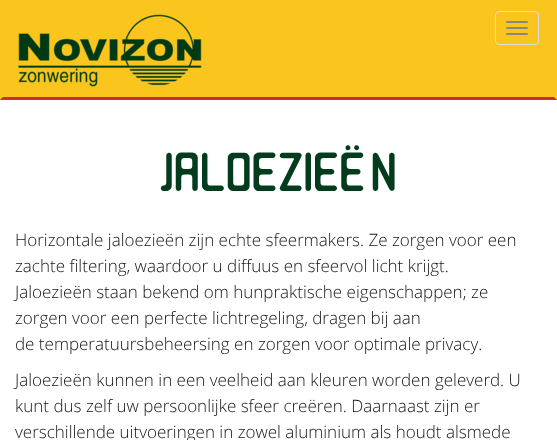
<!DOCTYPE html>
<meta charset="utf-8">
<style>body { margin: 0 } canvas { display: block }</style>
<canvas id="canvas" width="557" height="440"></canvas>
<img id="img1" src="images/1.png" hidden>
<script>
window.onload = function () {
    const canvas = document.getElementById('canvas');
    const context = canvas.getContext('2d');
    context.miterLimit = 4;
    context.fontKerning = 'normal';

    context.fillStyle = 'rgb(255, 255, 255)';
    context.fillRect(0, 0, 557, 440);
    context.fillStyle = 'rgb(250, 197, 29)';
    context.fillRect(0, 0, 557, 100);
    context.fillStyle = 'rgb(193, 50, 48)';
    context.beginPath();
    context.moveTo(557, 100);
    context.lineTo(0, 100);
    context.lineTo(3, 97);
    context.lineTo(554, 97);
    context.closePath();
    context.fill();
    context.drawImage(document.getElementById('img1'), 18, 14, 184, 73);
    context.beginPath();
    context.roundRect(495.5, 11.5, 43, 33, 3.5);
    context.strokeStyle = 'rgb(221, 221, 221)';
    context.stroke();
    context.fillStyle = 'rgb(136, 136, 136)';
    context.beginPath();
    context.roundRect(506, 21, 22, 2, 1);
    context.fill();
    context.beginPath();
    context.roundRect(506, 27, 22, 2, 1);
    context.fill();
    context.beginPath();
    context.roundRect(506, 33, 22, 2, 1);
    context.fill();
    context.letterSpacing = '0.5px';
    context.font = '55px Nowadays';
    context.fillStyle = 'rgb(3, 60, 28)';
    context.fillText('JALOEZIEËN', 160, 191);
    context.letterSpacing = '0px';
    context.font = '300 17px Open Sans';
    context.fillStyle = 'rgb(21, 21, 21)';
    context.fillText('Horizontale jaloezieën zijn echte sfeermakers. Ze zorgen voor een', 15, 246);
    context.fillText('zachte filtering, waardoor u diffuus en sfeervol licht krijgt.', 15, 272);
    context.fillText('Jaloezieën staan bekend om hunpraktische eigenschappen; ze', 15, 298);
    context.fillText('zorgen voor een perfecte lichtregeling, dragen bij aan', 15, 324);
    context.fillText('de temperatuursbeheersing en zorgen voor optimale privacy.', 15, 350);
    context.fillText('Jaloezieën kunnen in een veelheid aan kleuren worden geleverd. U', 15, 386);
    context.fillText('kunt dus zelf uw persoonlijke sfeer creëren. Daarnaast zijn er', 15, 412);
    context.fillText('verschillende uitvoeringen in zowel aluminium als houdt alsmede', 15, 438);
};
</script>
